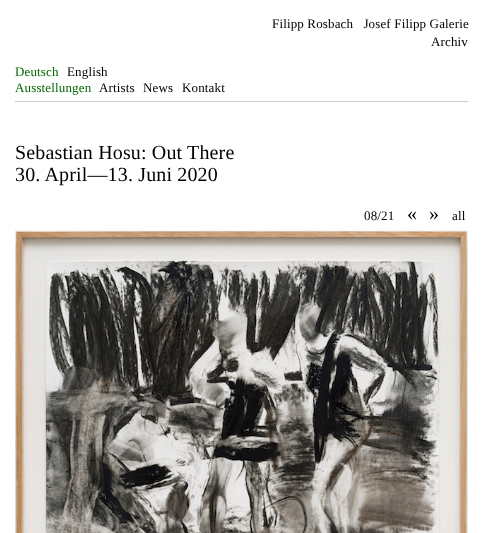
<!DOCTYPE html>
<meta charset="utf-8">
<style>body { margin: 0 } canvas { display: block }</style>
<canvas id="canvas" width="483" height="533"></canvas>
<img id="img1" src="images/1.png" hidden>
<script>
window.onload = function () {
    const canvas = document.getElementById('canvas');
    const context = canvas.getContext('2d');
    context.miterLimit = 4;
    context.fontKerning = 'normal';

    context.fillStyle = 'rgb(255, 255, 255)';
    context.fillRect(0, 0, 483, 533);
    context.fillStyle = 'rgb(204, 204, 204)';
    context.fillRect(15, 101, 453, 1);
    context.drawImage(document.getElementById('img1'), 15, 230, 453, 303);
    context.letterSpacing = '0.15px';
    context.font = '13px Liberation Serif';
    context.fillStyle = 'rgb(0, 0, 0)';
    context.fillText('Filipp Rosbach   Josef Filipp Galerie', 272, 28);
    context.fillText('Archiv', 431, 46);
    context.fillStyle = 'rgb(0, 102, 0)';
    context.fillText('Deutsch', 15, 76);
    context.fillStyle = 'rgb(0, 0, 0)';
    context.fillText('English', 67, 76);
    context.fillStyle = 'rgb(0, 102, 0)';
    context.fillText('Ausstellungen', 15, 92);
    context.fillStyle = 'rgb(0, 0, 0)';
    context.fillText('Artists', 99, 92);
    context.fillText('News', 143, 92);
    context.fillText('Kontakt', 182, 92);
    context.font = '20px Liberation Serif';
    context.fillText('Sebastian Hosu: Out There', 15, 159);
    context.fillText('30. April—13. Juni 2020', 15, 181);
    context.font = '13px Liberation Serif';
    context.fillText('08/21', 364, 220);
    context.font = '20px Liberation Serif';
    context.fillText('«', 407, 220);
    context.fillText('»', 429, 220);
    context.font = '13px Liberation Serif';
    context.fillText('all', 452, 220);
};
</script>
